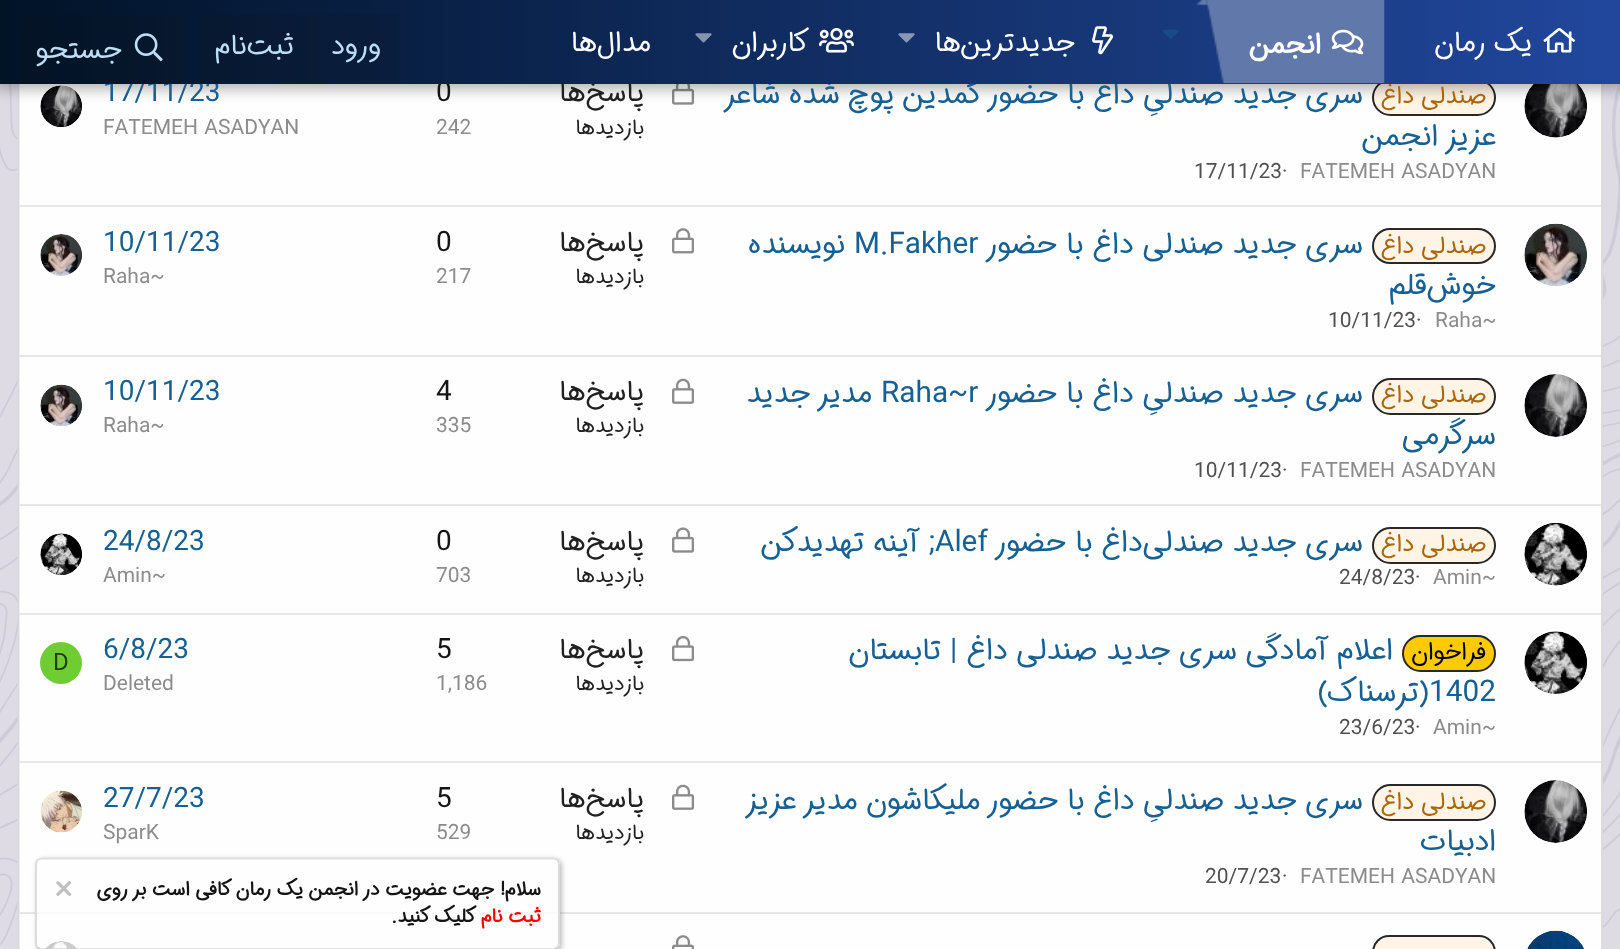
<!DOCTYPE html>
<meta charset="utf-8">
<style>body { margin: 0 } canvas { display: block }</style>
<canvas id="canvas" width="1620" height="949"></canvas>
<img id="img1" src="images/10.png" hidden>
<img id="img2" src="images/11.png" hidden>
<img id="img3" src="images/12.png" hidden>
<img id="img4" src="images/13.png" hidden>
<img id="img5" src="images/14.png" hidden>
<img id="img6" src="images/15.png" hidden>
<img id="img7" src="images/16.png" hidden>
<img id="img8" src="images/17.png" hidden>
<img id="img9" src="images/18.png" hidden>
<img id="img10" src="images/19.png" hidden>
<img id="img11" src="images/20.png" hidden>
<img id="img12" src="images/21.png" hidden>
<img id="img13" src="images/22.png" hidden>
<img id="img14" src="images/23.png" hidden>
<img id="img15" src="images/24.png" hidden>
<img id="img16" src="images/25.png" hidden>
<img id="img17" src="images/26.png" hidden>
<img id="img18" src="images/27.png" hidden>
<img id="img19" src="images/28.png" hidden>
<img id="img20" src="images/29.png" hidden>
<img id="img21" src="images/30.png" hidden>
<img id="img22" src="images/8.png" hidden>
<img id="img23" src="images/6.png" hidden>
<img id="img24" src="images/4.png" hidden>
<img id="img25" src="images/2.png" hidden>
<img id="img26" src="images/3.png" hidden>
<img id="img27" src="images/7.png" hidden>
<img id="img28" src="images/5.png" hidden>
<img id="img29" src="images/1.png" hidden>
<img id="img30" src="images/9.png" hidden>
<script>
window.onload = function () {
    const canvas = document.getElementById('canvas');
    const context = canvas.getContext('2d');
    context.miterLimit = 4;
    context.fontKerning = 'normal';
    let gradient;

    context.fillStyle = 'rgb(223, 219, 229)';
    context.fillRect(0, 0, 1620, 949);
    context.drawImage(document.getElementById('img1'), 0, 84, 1620, 862);
    context.fillStyle = 'rgb(254, 254, 254)';
    context.fillRect(19, 84, 1584, 865);
    context.beginPath();
    context.moveTo(1600.5, -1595);
    context.bezierCurveTo(1601.5, -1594, 1602, -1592.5, 1602, -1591);
    context.lineTo(1602, 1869);
    context.bezierCurveTo(1602, 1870.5, 1601.5, 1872, 1600.5, 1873.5);
    context.strokeStyle = 'rgb(216, 216, 216)';
    context.lineWidth = 1.8;
    context.stroke();
    context.beginPath();
    context.moveTo(20, 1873.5);
    context.bezierCurveTo(19, 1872, 18.5, 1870.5, 18.5, 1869);
    context.lineTo(18.5, -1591);
    context.bezierCurveTo(18.5, -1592.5, 19, -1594, 20, -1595);
    context.stroke();
    context.drawImage(document.getElementById('img2'), 1524, 84, 63, 54);
    context.fillStyle = 'rgb(255, 244, 229)';
    context.beginPath();
    context.roundRect(1373, 80, 122, 35, 17.5);
    context.fill();
    context.strokeStyle = 'rgb(40, 40, 40)';
    context.lineWidth = 2;
    context.stroke();
    context.drawImage(document.getElementById('img3'), 672, 84, 23, 21);
    context.drawImage(document.getElementById('img4'), 40, 85, 42, 42);
    context.fillStyle = 'rgba(0, 0, 0, 0.3)';
    context.filter = 'blur(7px)';
    context.beginPath();
    context.rect(-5, -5, 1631, 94);
    context.fill();
    context.filter = 'none';
    context.fillStyle = 'rgb(231, 231, 231)';
    context.fillRect(19, 205, 1582, 2);
    context.drawImage(document.getElementById('img5'), 1524, 223, 63, 64);
    context.fillStyle = 'rgb(255, 244, 229)';
    context.beginPath();
    context.roundRect(1373, 229, 122, 34, 17);
    context.fill();
    context.stroke();
    context.drawImage(document.getElementById('img6'), 672, 228, 23, 26);
    context.drawImage(document.getElementById('img7'), 40, 234, 42, 42);
    context.fillStyle = 'rgb(231, 231, 231)';
    context.fillRect(19, 355, 1582, 2);
    context.drawImage(document.getElementById('img8'), 1524, 374, 63, 63);
    context.fillStyle = 'rgb(255, 244, 229)';
    context.beginPath();
    context.roundRect(1373, 379, 122, 35, 17.5);
    context.fill();
    context.stroke();
    context.drawImage(document.getElementById('img9'), 672, 378, 23, 26);
    context.drawImage(document.getElementById('img10'), 40, 384, 42, 43);
    context.fillStyle = 'rgb(231, 231, 231)';
    context.fillRect(19, 504, 1582, 2);
    context.drawImage(document.getElementById('img11'), 1524, 523, 63, 63);
    context.fillStyle = 'rgb(255, 244, 229)';
    context.beginPath();
    context.roundRect(1373, 528, 122, 35, 17.5);
    context.fill();
    context.stroke();
    context.drawImage(document.getElementById('img12'), 672, 527, 23, 26);
    context.drawImage(document.getElementById('img13'), 40, 533, 42, 42);
    context.fillStyle = 'rgb(231, 231, 231)';
    context.fillRect(19, 613, 1582, 2);
    context.drawImage(document.getElementById('img14'), 1524, 631, 63, 63);
    context.fillStyle = 'rgb(255, 203, 0)';
    context.beginPath();
    context.roundRect(1403, 636, 92, 35, 17.5);
    context.fill();
    context.stroke();
    context.drawImage(document.getElementById('img15'), 672, 636, 23, 26);
    context.fillStyle = 'rgb(112, 204, 51)';
    context.beginPath();
    context.arc(61, 663, 21, 0, 2 * Math.PI);
    context.fill();
    context.fillStyle = 'rgb(231, 231, 231)';
    context.fillRect(19, 761, 1582, 2);
    context.drawImage(document.getElementById('img16'), 1524, 780, 63, 63);
    context.fillStyle = 'rgb(255, 244, 229)';
    context.beginPath();
    context.roundRect(1373, 785, 122, 35, 17.5);
    context.fill();
    context.stroke();
    context.drawImage(document.getElementById('img9'), 672, 784, 23, 26);
    context.drawImage(document.getElementById('img17'), 40, 790, 42, 43);
    context.fillStyle = 'rgb(231, 231, 231)';
    context.fillRect(19, 912, 1582, 2);
    context.drawImage(document.getElementById('img18'), 1527, 930, 57, 19);
    context.fillStyle = 'rgb(255, 244, 229)';
    context.beginPath();
    context.roundRect(1373, 936, 122, 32, 17);
    context.fill();
    context.stroke();
    context.drawImage(document.getElementById('img19'), 672, 935, 23, 14);
    context.drawImage(document.getElementById('img20'), 45, 941, 33, 8);
    context.save();
    context.beginPath();
    context.moveTo(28, 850);
    context.lineTo(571, 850);
    context.lineTo(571, 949);
    context.lineTo(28, 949);
    context.closePath();
    context.moveTo(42, 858);
    context.lineTo(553, 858);
    context.bezierCurveTo(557, 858, 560, 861, 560, 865);
    context.lineTo(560, 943);
    context.bezierCurveTo(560, 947, 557, 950, 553, 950);
    context.lineTo(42, 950);
    context.bezierCurveTo(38, 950, 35, 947, 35, 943);
    context.lineTo(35, 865);
    context.bezierCurveTo(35, 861, 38, 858, 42, 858);
    context.closePath();
    context.clip('evenodd');
    context.fillStyle = 'rgba(0, 0, 0, 0.25)';
    context.filter = 'blur(2.5px)';
    context.beginPath();
    context.roundRect(37, 859, 525, 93, 7);
    context.fill();
    context.filter = 'none';
    context.restore();
    context.fillStyle = 'rgba(254, 254, 254, 0.8)';
    context.beginPath();
    context.roundRect(35, 858, 525, 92, 7);
    context.fill();
    context.beginPath();
    context.moveTo(37.5, 860);
    context.bezierCurveTo(39, 859, 40.5, 858.5, 42, 858.5);
    context.lineTo(553, 858.5);
    context.bezierCurveTo(554.5, 858.5, 556, 859, 557.5, 860);
    context.strokeStyle = 'rgb(223, 223, 223)';
    context.lineWidth = 1.8;
    context.stroke();
    context.beginPath();
    context.moveTo(557.5, 860);
    context.bezierCurveTo(558.5, 861.5, 559, 863, 559, 864.5);
    context.lineTo(559, 943);
    context.bezierCurveTo(559, 945, 558.5, 946.5, 557.5, 947.5);
    context.strokeStyle = 'rgb(216, 216, 216)';
    context.stroke();
    context.beginPath();
    context.moveTo(557.5, 947.5);
    context.bezierCurveTo(556, 948.5, 554.5, 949.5, 553, 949.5);
    context.lineTo(42, 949.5);
    context.bezierCurveTo(40.5, 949.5, 39, 948.5, 37.5, 947.5);
    context.strokeStyle = 'rgb(203, 203, 203)';
    context.stroke();
    context.beginPath();
    context.moveTo(37.5, 947.5);
    context.bezierCurveTo(36.5, 946.5, 36, 945, 36, 943);
    context.lineTo(36, 864.5);
    context.bezierCurveTo(36, 863, 36.5, 861.5, 37.5, 860);
    context.strokeStyle = 'rgb(216, 216, 216)';
    context.stroke();
    context.drawImage(document.getElementById('img21'), 56, 881, 16, 16);
    context.direction = 'rtl';
    context.font = '24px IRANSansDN';
    context.fillStyle = 'rgb(170, 103, 9)';
    context.fillText('صندلی داغ', 1486, 103);
    context.wordSpacing = '-0.25px';
    context.font = '29.75px IRANSansDN';
    context.fillStyle = 'rgb(23, 96, 147)';
    context.fillText('سری جدید صندلیِ داغ با حضور کمدین پوچ شده شاعر', 1363, 103);
    context.wordSpacing = '0px';
    context.fillText('عزیز انجمن', 1496, 145);
    context.direction = 'ltr';
    context.font = '21px IRANSansDN';
    context.fillStyle = 'rgb(140, 140, 140)';
    context.fillText('FATEMEH ASADYAN', 1300, 178);
    context.fillStyle = 'rgb(80, 80, 80)';
    context.fillText('·', 1282, 178);
    context.fillText('17/11/23', 1194, 178);
    context.direction = 'rtl';
    context.font = '28px IRANSansDN';
    context.fillStyle = 'rgb(33, 33, 33)';
    context.fillText('پاسخ‌ها', 644, 101);
    context.direction = 'ltr';
    context.fillStyle = 'rgb(20, 20, 20)';
    context.fillText('0', 436, 101);
    context.direction = 'rtl';
    context.font = '21px IRANSansDN';
    context.fillStyle = 'rgb(33, 33, 33)';
    context.fillText('بازدیدها', 644, 134);
    context.direction = 'ltr';
    context.fillStyle = 'rgb(140, 140, 140)';
    context.fillText('242', 436, 134);
    context.font = '28px IRANSansDN';
    context.fillStyle = 'rgb(23, 96, 147)';
    context.fillText('17/11/23', 103, 101);
    gradient = context.createLinearGradient(0, 42, 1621, 42);
    gradient.addColorStop(0, 'rgb(1, 19, 39)');
    gradient.addColorStop(1, 'rgb(33, 71, 157)');
    context.fillStyle = gradient;
    context.fillRect(0, 0, 1620, 84);
    context.drawImage(document.getElementById('img22'), 695, 33, 17, 10);
    context.drawImage(document.getElementById('img23'), 898, 33, 17, 10);
    context.drawImage(document.getElementById('img24'), 1162, 29, 17, 10);
    context.drawImage(document.getElementById('img25'), 1197, 0, 188, 83);
    context.direction = 'rtl';
    context.font = 'bold 28px IRANSansDN';
    context.fillStyle = 'rgb(254, 254, 254)';
    context.fillText('انجمن', 1321, 53);
    context.drawImage(document.getElementById('img26'), 1331, 29, 33, 26);
    context.font = '28px IRANSansDN';
    context.fillText('مدال‌ها', 651, 51);
    context.fillText('کاربران', 809, 51);
    context.drawImage(document.getElementById('img27'), 819, 28, 35, 25);
    context.fillText('جدیدترین‌ها', 1075, 51);
    context.drawImage(document.getElementById('img28'), 1092, 26, 22, 29);
    context.fillText('یک رمان', 1532, 51);
    context.drawImage(document.getElementById('img29'), 1543, 28, 32, 25);
    context.fillStyle = 'rgba(20, 20, 20, 0.15)';
    context.beginPath();
    context.roundRect(18, 14, 166, 70, [7, 7, 0, 0]);
    context.fill();
    context.fillStyle = 'rgb(188, 222, 245)';
    context.fillText('جستجو', 122, 58);
    context.drawImage(document.getElementById('img30'), 134, 33, 29, 29);
    context.fillStyle = 'rgba(20, 20, 20, 0.15)';
    context.fillRect(198, 14, 201, 67);
    context.fillStyle = 'rgb(188, 222, 245)';
    context.fillText('ثبت‌نام', 294, 54);
    context.fillStyle = 'rgb(11, 27, 50)';
    context.fillRect(312, 14, 2, 67);
    context.fillStyle = 'rgb(188, 222, 245)';
    context.fillText('ورود', 381, 54);
    context.direction = 'ltr';
    context.font = '21px IRANSansDN';
    context.fillStyle = 'rgb(140, 140, 140)';
    context.fillText('FATEMEH ASADYAN', 103, 134);
    context.direction = 'rtl';
    context.font = '24px IRANSansDN';
    context.fillStyle = 'rgb(170, 103, 9)';
    context.fillText('صندلی داغ', 1486, 253);
    context.font = '29.75px IRANSansDN';
    context.fillStyle = 'rgb(23, 96, 147)';
    context.fillText('سری جدید صندلی داغ با حضور', 1363, 253);
    context.direction = 'ltr';
    context.fillText('M.Fakher', 854, 253);
    context.direction = 'rtl';
    context.fillText('نویسنده', 845, 253);
    context.fillText('خوش‌قلم', 1496, 294);
    context.direction = 'ltr';
    context.font = '21px IRANSansDN';
    context.fillStyle = 'rgb(140, 140, 140)';
    context.fillText('Raha~', 1435, 327);
    context.fillStyle = 'rgb(80, 80, 80)';
    context.fillText('·', 1416, 327);
    context.fillText('10/11/23', 1328, 327);
    context.direction = 'rtl';
    context.font = '28px IRANSansDN';
    context.fillStyle = 'rgb(33, 33, 33)';
    context.fillText('پاسخ‌ها', 644, 251);
    context.direction = 'ltr';
    context.fillStyle = 'rgb(20, 20, 20)';
    context.fillText('0', 436, 251);
    context.direction = 'rtl';
    context.font = '21px IRANSansDN';
    context.fillStyle = 'rgb(33, 33, 33)';
    context.fillText('بازدیدها', 644, 283);
    context.direction = 'ltr';
    context.fillStyle = 'rgb(140, 140, 140)';
    context.fillText('217', 436, 283);
    context.font = '28px IRANSansDN';
    context.fillStyle = 'rgb(23, 96, 147)';
    context.fillText('10/11/23', 103, 251);
    context.font = '21px IRANSansDN';
    context.fillStyle = 'rgb(140, 140, 140)';
    context.fillText('Raha~', 103, 283);
    context.direction = 'rtl';
    context.font = '24px IRANSansDN';
    context.fillStyle = 'rgb(170, 103, 9)';
    context.fillText('صندلی داغ', 1486, 402);
    context.font = '29.75px IRANSansDN';
    context.fillStyle = 'rgb(23, 96, 147)';
    context.fillText('سری جدید صندلیِ داغ با حضور', 1363, 402);
    context.direction = 'ltr';
    context.fillText('Raha~r', 881, 402);
    context.direction = 'rtl';
    context.fillText('مدیر جدید', 872, 402);
    context.fillText('سرگرمی', 1496, 444);
    context.direction = 'ltr';
    context.font = '21px IRANSansDN';
    context.fillStyle = 'rgb(140, 140, 140)';
    context.fillText('FATEMEH ASADYAN', 1300, 477);
    context.fillStyle = 'rgb(80, 80, 80)';
    context.fillText('·', 1282, 477);
    context.fillText('10/11/23', 1194, 477);
    context.direction = 'rtl';
    context.font = '28px IRANSansDN';
    context.fillStyle = 'rgb(33, 33, 33)';
    context.fillText('پاسخ‌ها', 644, 400);
    context.direction = 'ltr';
    context.fillStyle = 'rgb(20, 20, 20)';
    context.fillText('4', 436, 400);
    context.direction = 'rtl';
    context.font = '21px IRANSansDN';
    context.fillStyle = 'rgb(33, 33, 33)';
    context.fillText('بازدیدها', 644, 432);
    context.direction = 'ltr';
    context.fillStyle = 'rgb(140, 140, 140)';
    context.fillText('335', 436, 432);
    context.font = '28px IRANSansDN';
    context.fillStyle = 'rgb(23, 96, 147)';
    context.fillText('10/11/23', 103, 400);
    context.font = '21px IRANSansDN';
    context.fillStyle = 'rgb(140, 140, 140)';
    context.fillText('Raha~', 103, 432);
    context.direction = 'rtl';
    context.font = '24px IRANSansDN';
    context.fillStyle = 'rgb(170, 103, 9)';
    context.fillText('صندلی داغ', 1486, 551);
    context.font = '29.75px IRANSansDN';
    context.fillStyle = 'rgb(23, 96, 147)';
    context.fillText('سری جدید صندلی‌داغ با حضور', 1363, 551);
    context.direction = 'ltr';
    context.fillText('Alef', 935, 551);
    context.direction = 'rtl';
    context.fillText('; آینه تهدیدکن', 935, 551);
    context.direction = 'ltr';
    context.font = '21px IRANSansDN';
    context.fillStyle = 'rgb(140, 140, 140)';
    context.fillText('Amin~', 1433, 584);
    context.fillStyle = 'rgb(80, 80, 80)';
    context.fillText('·', 1415, 584);
    context.fillText('24/8/23', 1339, 584);
    context.direction = 'rtl';
    context.font = '28px IRANSansDN';
    context.fillStyle = 'rgb(33, 33, 33)';
    context.fillText('پاسخ‌ها', 644, 550);
    context.direction = 'ltr';
    context.fillStyle = 'rgb(20, 20, 20)';
    context.fillText('0', 436, 550);
    context.direction = 'rtl';
    context.font = '21px IRANSansDN';
    context.fillStyle = 'rgb(33, 33, 33)';
    context.fillText('بازدیدها', 644, 582);
    context.direction = 'ltr';
    context.fillStyle = 'rgb(140, 140, 140)';
    context.fillText('703', 436, 582);
    context.font = '28px IRANSansDN';
    context.fillStyle = 'rgb(23, 96, 147)';
    context.fillText('24/8/23', 103, 550);
    context.font = '21px IRANSansDN';
    context.fillStyle = 'rgb(140, 140, 140)';
    context.fillText('Amin~', 103, 582);
    context.direction = 'rtl';
    context.font = '24px IRANSansDN';
    context.fillStyle = 'rgb(0, 0, 0)';
    context.fillText('فراخوان', 1486, 659);
    context.font = '29.75px IRANSansDN';
    context.fillStyle = 'rgb(23, 96, 147)';
    context.fillText('اعلام آمادگی سری جدید صندلی داغ | تابستان', 1393, 659);
    context.direction = 'ltr';
    context.fillText('1402', 1429, 701);
    context.direction = 'rtl';
    context.fillText('(ترسناک)', 1429, 701);
    context.direction = 'ltr';
    context.font = '21px IRANSansDN';
    context.fillStyle = 'rgb(140, 140, 140)';
    context.fillText('Amin~', 1433, 734);
    context.fillStyle = 'rgb(80, 80, 80)';
    context.fillText('·', 1415, 734);
    context.fillText('23/6/23', 1339, 734);
    context.direction = 'rtl';
    context.font = '28px IRANSansDN';
    context.fillStyle = 'rgb(33, 33, 33)';
    context.fillText('پاسخ‌ها', 644, 658);
    context.direction = 'ltr';
    context.fillStyle = 'rgb(20, 20, 20)';
    context.fillText('5', 436, 658);
    context.direction = 'rtl';
    context.font = '21px IRANSansDN';
    context.fillStyle = 'rgb(33, 33, 33)';
    context.fillText('بازدیدها', 644, 690);
    context.direction = 'ltr';
    context.fillStyle = 'rgb(140, 140, 140)';
    context.fillText('1,186', 436, 690);
    context.font = '28px IRANSansDN';
    context.fillStyle = 'rgb(23, 96, 147)';
    context.fillText('6/8/23', 103, 658);
    context.font = '21px IRANSansDN';
    context.fillStyle = 'rgb(140, 140, 140)';
    context.fillText('Deleted', 103, 690);
    context.font = '24px IRANSansDN';
    context.fillStyle = 'rgb(34, 61, 15)';
    context.fillText('D', 53, 670);
    context.direction = 'rtl';
    context.fillStyle = 'rgb(170, 103, 9)';
    context.fillText('صندلی داغ', 1486, 809);
    context.wordSpacing = '-0.25px';
    context.font = '29.75px IRANSansDN';
    context.fillStyle = 'rgb(23, 96, 147)';
    context.fillText('سری جدید صندلیِ داغ با حضور ملیکاشون مدیر عزیز', 1363, 809);
    context.wordSpacing = '0px';
    context.fillText('ادبیات', 1496, 850);
    context.direction = 'ltr';
    context.font = '21px IRANSansDN';
    context.fillStyle = 'rgb(140, 140, 140)';
    context.fillText('FATEMEH ASADYAN', 1300, 883);
    context.fillStyle = 'rgb(80, 80, 80)';
    context.fillText('·', 1282, 883);
    context.fillText('20/7/23', 1205, 883);
    context.direction = 'rtl';
    context.font = '28px IRANSansDN';
    context.fillStyle = 'rgb(33, 33, 33)';
    context.fillText('پاسخ‌ها', 644, 807);
    context.direction = 'ltr';
    context.fillStyle = 'rgb(20, 20, 20)';
    context.fillText('5', 436, 807);
    context.direction = 'rtl';
    context.font = '21px IRANSansDN';
    context.fillStyle = 'rgb(33, 33, 33)';
    context.fillText('بازدیدها', 644, 839);
    context.direction = 'ltr';
    context.fillStyle = 'rgb(140, 140, 140)';
    context.fillText('529', 436, 839);
    context.font = '28px IRANSansDN';
    context.fillStyle = 'rgb(23, 96, 147)';
    context.fillText('27/7/23', 103, 807);
    context.font = '21px IRANSansDN';
    context.fillStyle = 'rgb(140, 140, 140)';
    context.fillText('SparK', 103, 839);
    context.direction = 'rtl';
    context.font = 'bold 19.25px IRANSansDN';
    context.fillStyle = 'rgb(20, 20, 20)';
    context.fillText('سلام!', 541, 895);
    context.fillText('جهت عضویت در انجمن یک رمان کافی است بر روی', 494, 895);
    context.fillStyle = 'rgb(255, 0, 0)';
    context.fillText('ثبت نام', 541, 922);
    context.fillStyle = 'rgb(20, 20, 20)';
    context.fillText('کلیک کنید.', 476, 922);
};
</script>
